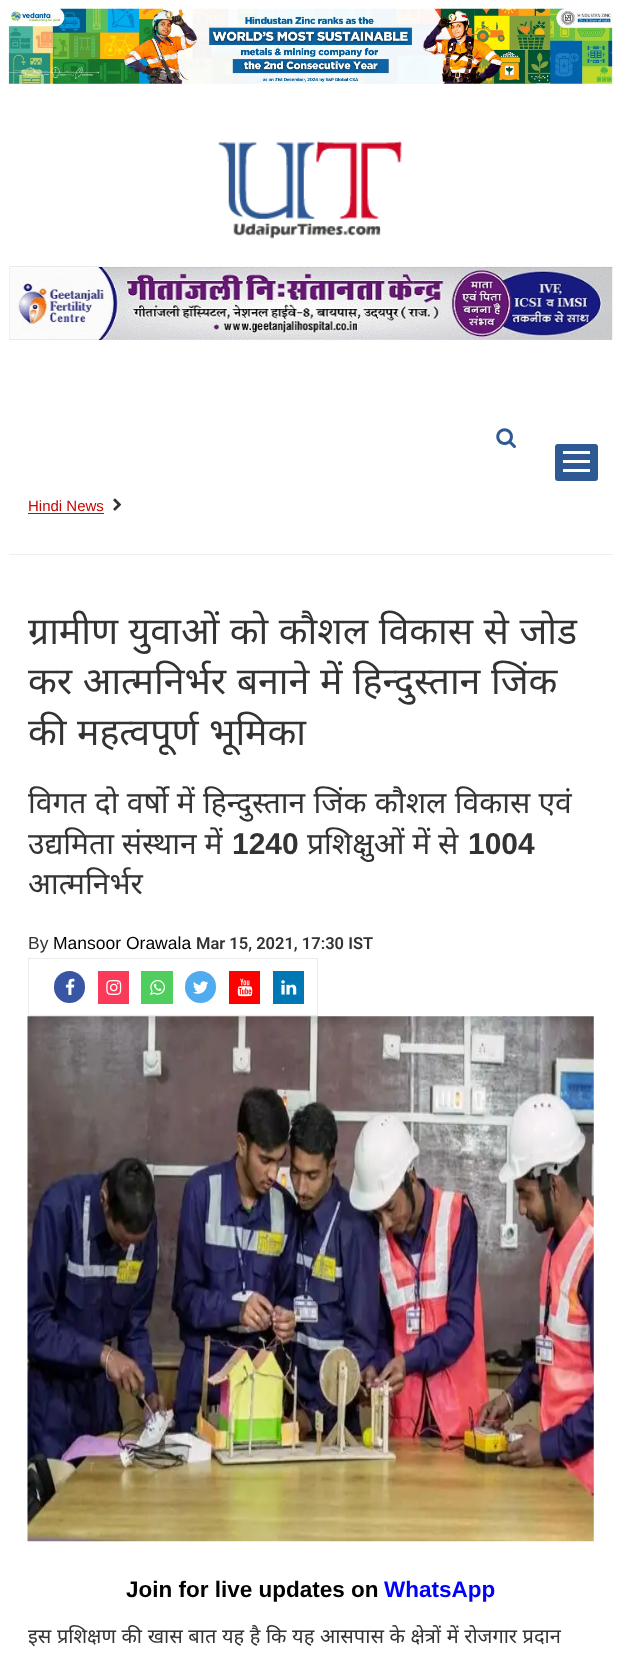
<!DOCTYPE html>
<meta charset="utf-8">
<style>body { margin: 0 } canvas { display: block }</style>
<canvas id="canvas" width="621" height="1666"></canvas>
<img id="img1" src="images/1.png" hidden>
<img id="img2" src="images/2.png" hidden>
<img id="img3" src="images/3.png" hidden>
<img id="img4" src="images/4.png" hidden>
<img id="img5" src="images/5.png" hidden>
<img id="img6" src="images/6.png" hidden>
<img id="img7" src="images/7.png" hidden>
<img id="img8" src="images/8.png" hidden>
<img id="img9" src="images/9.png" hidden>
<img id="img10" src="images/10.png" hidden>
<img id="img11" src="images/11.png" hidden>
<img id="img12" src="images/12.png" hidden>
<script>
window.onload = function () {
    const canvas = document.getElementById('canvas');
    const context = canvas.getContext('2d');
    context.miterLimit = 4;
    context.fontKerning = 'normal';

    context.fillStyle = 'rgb(255, 255, 255)';
    context.fillRect(0, 0, 621, 1666);
    context.drawImage(document.getElementById('img1'), 8, 8, 605, 76);
    context.drawImage(document.getElementById('img2'), 218, 141, 184, 98);
    context.drawImage(document.getElementById('img3'), 9, 266, 604, 74);
    context.drawImage(document.getElementById('img4'), 496, 428, 20, 20);
    context.fillStyle = 'rgb(47, 89, 147)';
    context.beginPath();
    context.roundRect(555, 444, 43, 37, 3);
    context.fill();
    context.fillStyle = 'rgb(255, 255, 255)';
    context.fillRect(563, 460, 27, 3);
    context.fillRect(563, 451, 27, 3);
    context.fillRect(563, 469, 27, 3);
    context.fillStyle = 'rgb(197, 5, 4)';
    context.fillRect(28, 513, 76, 1);
    context.drawImage(document.getElementById('img5'), 113, 498, 9, 13);
    context.fillStyle = 'rgb(238, 238, 238)';
    context.fillRect(9, 554, 604, 1);
    context.strokeStyle = 'rgb(235, 235, 235)';
    context.strokeRect(28.5, 958.5, 289, 57);
    context.fillStyle = 'rgb(57, 86, 165)';
    context.beginPath();
    context.roundRect(54, 971, 31, 32, 15.5);
    context.fill();
    context.drawImage(document.getElementById('img6'), 65, 978, 10, 17);
    context.fillStyle = 'rgb(251, 57, 88)';
    context.fillRect(98, 971, 31, 33);
    context.drawImage(document.getElementById('img7'), 106, 980, 16, 15);
    context.fillStyle = 'rgb(79, 206, 93)';
    context.fillRect(141, 971, 32, 33);
    context.drawImage(document.getElementById('img8'), 150, 979, 15, 16);
    context.fillStyle = 'rgb(81, 172, 239)';
    context.beginPath();
    context.roundRect(185, 971, 31, 32, 15.5);
    context.fill();
    context.drawImage(document.getElementById('img9'), 193, 981, 16, 13);
    context.fillStyle = 'rgb(255, 0, 0)';
    context.fillRect(229, 971, 31, 33);
    context.drawImage(document.getElementById('img10'), 237, 978, 16, 19);
    context.fillStyle = 'rgb(0, 119, 181)';
    context.fillRect(273, 971, 31, 33);
    context.drawImage(document.getElementById('img11'), 281, 980, 16, 15);
    context.drawImage(document.getElementById('img12'), 27, 1016, 567, 526);
    context.font = '15px Liberation Sans';
    context.fillStyle = 'rgb(197, 5, 4)';
    context.fillText('Hindi News', 28, 511);
    context.wordSpacing = '0.75px';
    context.font = '37.5px Noto Sans';
    context.fillStyle = 'rgb(51, 51, 51)';
    context.fillText('ग्रामीण युवाओं को कौशल विकास से जोड', 28, 644);
    context.fillText('कर आत्मनिर्भर बनाने में हिन्दुस्तान जिंक', 28, 694);
    context.fillText('की महत्वपूर्ण भूमिका', 28, 745);
    context.wordSpacing = '0.5px';
    context.font = '30px Noto Sans';
    context.fillText('विगत दो वर्षो में हिन्दुस्तान जिंक कौशल विकास एवं', 28, 813);
    context.wordSpacing = '0px';
    context.fillText('उद्यमिता संस्थान में', 28, 854);
    context.font = 'bold 30px Liberation Sans';
    context.fillText('1240', 232, 854);
    context.font = '30px Noto Sans';
    context.fillText('प्रशिक्षुओं में से', 307, 854);
    context.font = 'bold 30px Liberation Sans';
    context.fillText('1004', 468, 854);
    context.font = '30px Noto Sans';
    context.fillText('आत्मनिर्भर', 28, 894);
    context.font = '17.5px Liberation Sans';
    context.fillText('By', 28, 949);
    context.fillStyle = 'rgb(0, 0, 0)';
    context.fillText('Mansoor Orawala', 53, 949);
    context.font = '600 16.5px Roboto';
    context.fillStyle = 'rgb(51, 51, 51)';
    context.fillText('Mar 15, 2021, 17:30 IST', 196, 949);
    context.font = 'bold 22.5px Liberation Sans';
    context.fillStyle = 'rgb(0, 0, 0)';
    context.fillText('Join for live updates on', 126, 1597);
    context.fillStyle = 'rgb(0, 0, 255)';
    context.fillText('WhatsApp', 384, 1597);
    context.wordSpacing = '0.4px';
    context.font = '20px Noto Sans';
    context.fillStyle = 'rgb(51, 51, 51)';
    context.fillText('इस प्रशिक्षण की खास बात यह है कि यह आसपास के क्षेत्रों में रोजगार प्रदान', 28, 1643);
};
</script>
